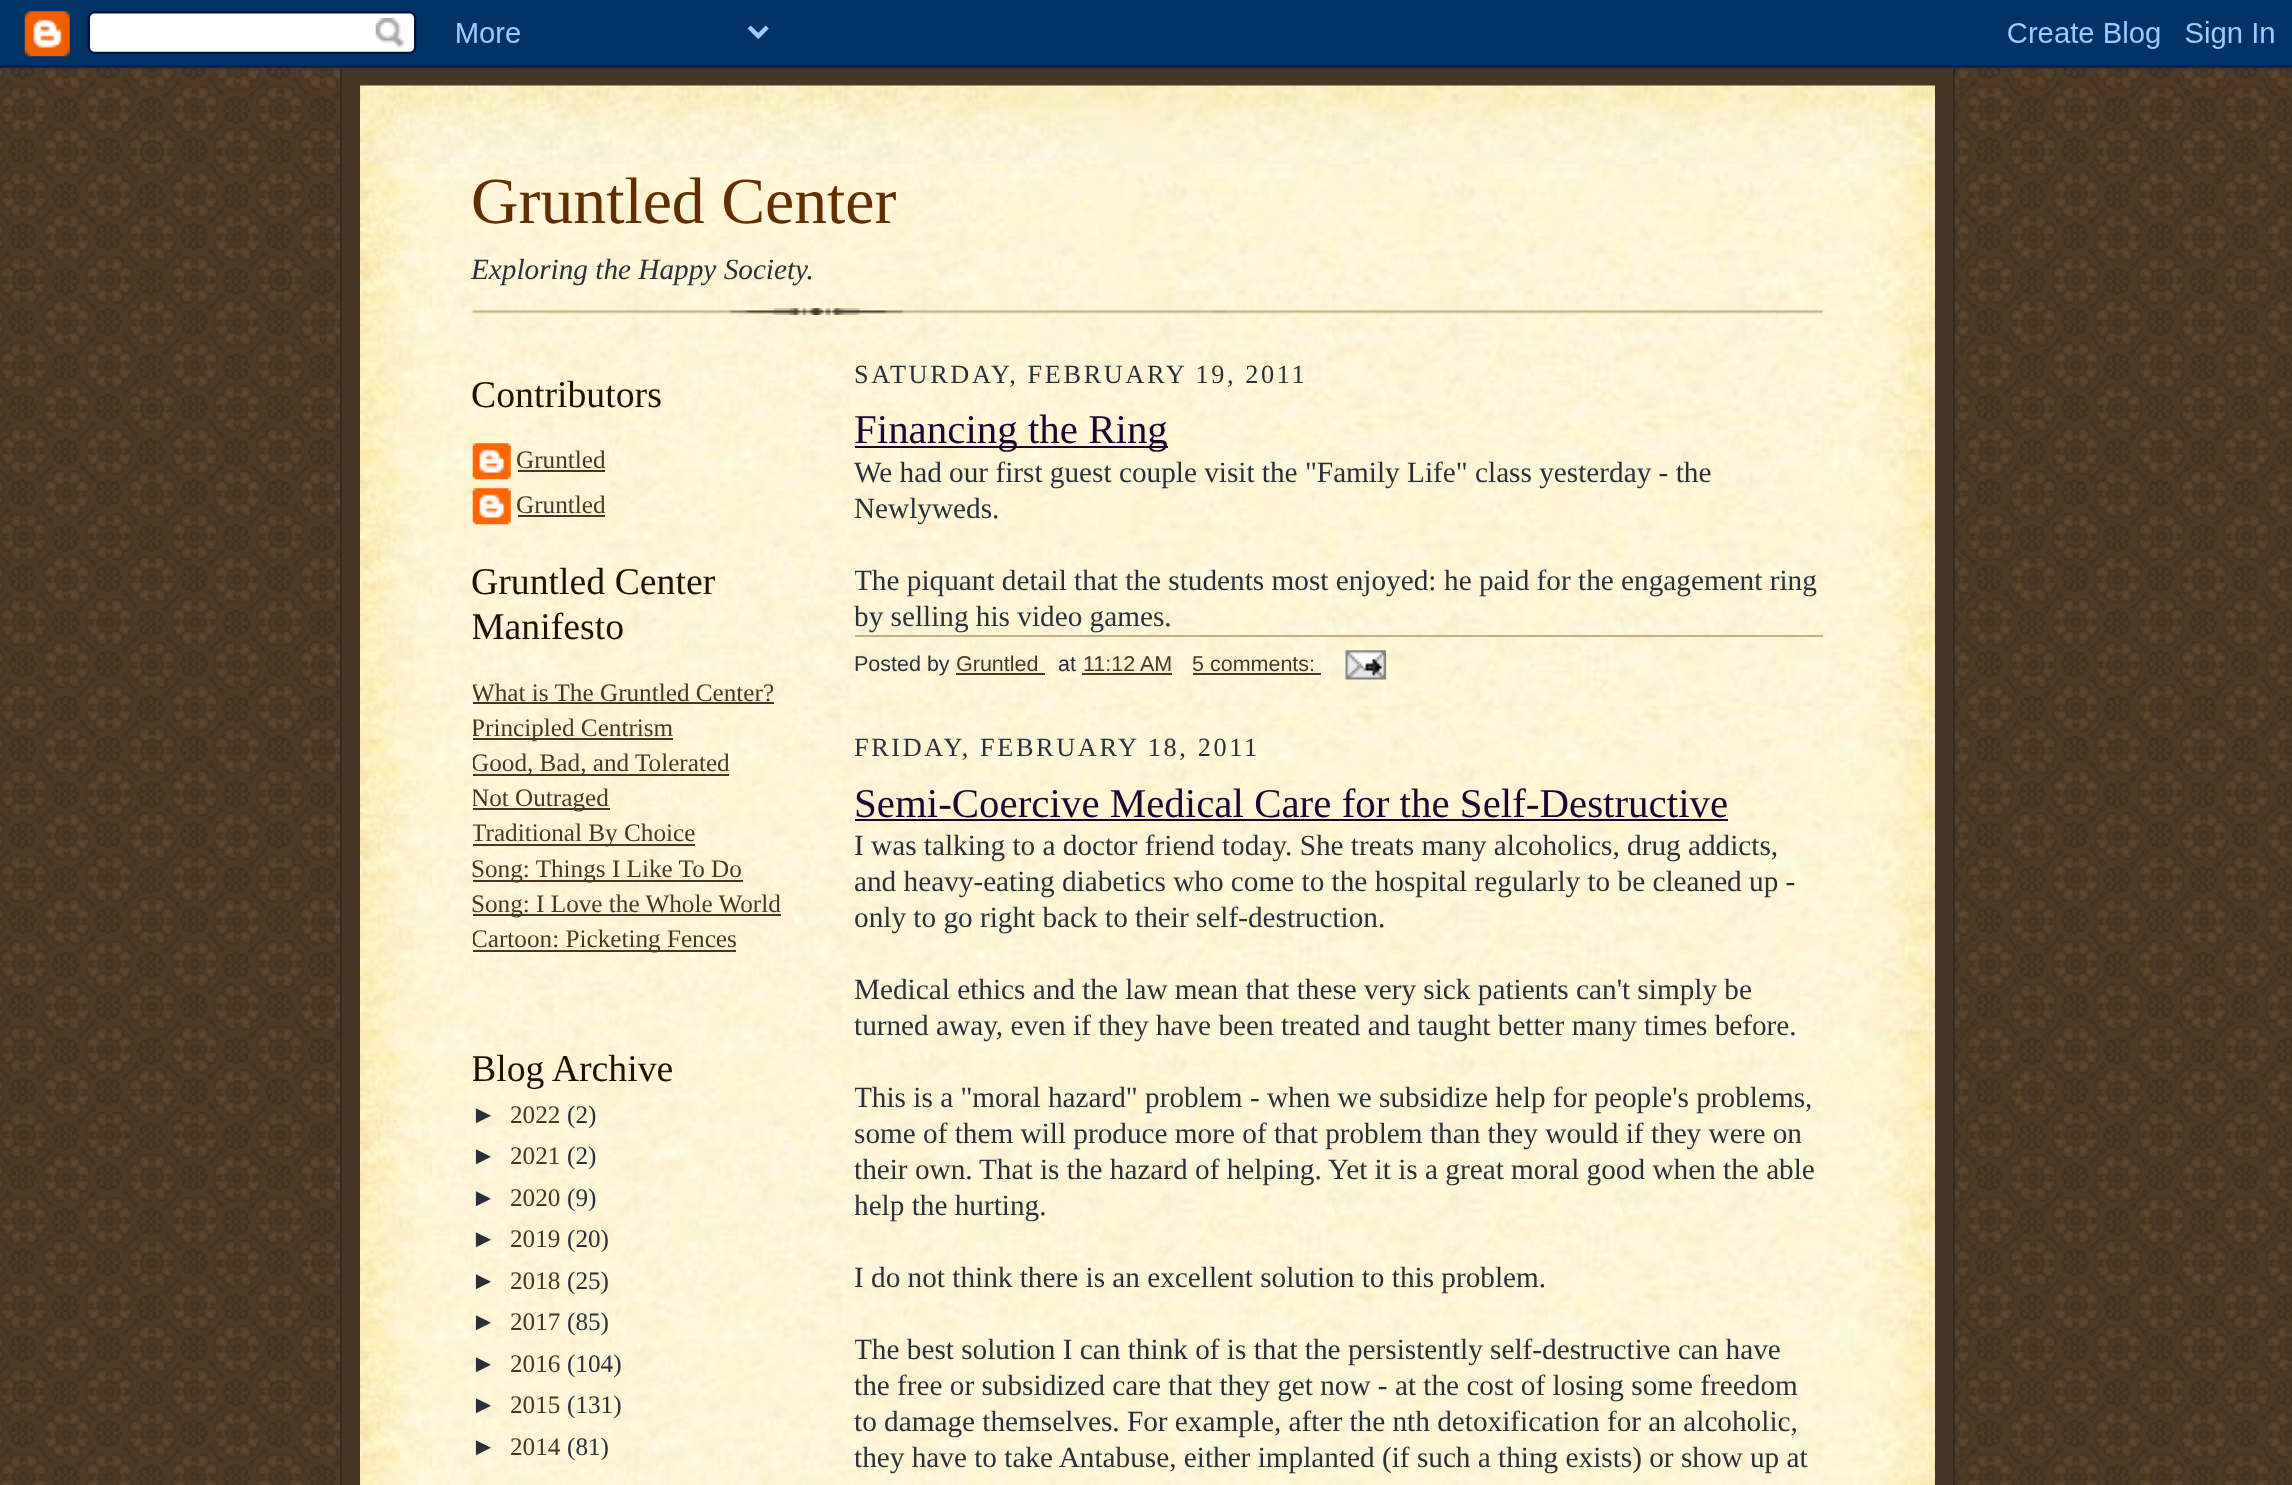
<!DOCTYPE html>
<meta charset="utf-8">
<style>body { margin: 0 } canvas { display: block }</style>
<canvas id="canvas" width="2292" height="1485"></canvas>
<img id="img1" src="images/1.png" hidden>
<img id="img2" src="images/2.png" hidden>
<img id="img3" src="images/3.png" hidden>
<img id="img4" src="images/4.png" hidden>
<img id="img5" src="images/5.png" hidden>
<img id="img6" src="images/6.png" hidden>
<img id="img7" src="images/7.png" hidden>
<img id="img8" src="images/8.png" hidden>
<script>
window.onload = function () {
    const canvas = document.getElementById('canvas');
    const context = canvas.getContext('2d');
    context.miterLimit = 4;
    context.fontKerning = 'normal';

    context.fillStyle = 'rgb(255, 255, 255)';
    context.fillRect(0, 0, 2292, 1485);
    context.drawImage(document.getElementById('img1'), 0, 65, 2292, 1420);
    context.drawImage(document.getElementById('img2'), 0, 0, 2292, 68);
    context.fillStyle = 'rgb(71, 54, 36)';
    context.fillRect(342, 68, 1611, 1417);
    context.fillStyle = 'rgb(51, 42, 36)';
    context.fillRect(1953, 68, 2, 1417);
    context.fillRect(340, 68, 2, 1417);
    context.drawImage(document.getElementById('img3'), 360, 85, 1575, 80);
    context.drawImage(document.getElementById('img4'), 360, 164, 1575, 1321);
    context.drawImage(document.getElementById('img5'), 472, 308, 1351, 7);
    context.drawImage(document.getElementById('img6'), 472, 443, 39, 37);
    context.fillStyle = 'rgb(71, 54, 36)';
    context.fillRect(518, 470, 87, 2);
    context.drawImage(document.getElementById('img7'), 472, 488, 39, 37);
    context.fillRect(518, 515, 87, 2);
    context.fillRect(473, 702, 301, 2);
    context.fillRect(473, 738, 200, 2);
    context.fillRect(473, 774, 256, 2);
    context.fillRect(473, 808, 137, 2);
    context.fillRect(473, 844, 222, 2);
    context.fillRect(473, 880, 270, 2);
    context.fillRect(473, 914, 308, 2);
    context.fillRect(473, 950, 263, 2);
    context.fillStyle = 'rgb(27, 4, 49)';
    context.fillRect(855, 446, 313, 2);
    context.fillStyle = 'rgb(191, 177, 134)';
    context.fillRect(855, 635, 968, 2);
    context.fillStyle = 'rgb(71, 54, 36)';
    context.fillRect(956, 673, 89, 2);
    context.beginPath();
    context.moveTo(1082.5, 674);
    context.lineTo(1172.5, 674);
    context.strokeStyle = 'rgb(71, 54, 36)';
    context.lineWidth = 2.2;
    context.setLineDash([2.25, 2.25]);
    context.stroke();
    context.fillRect(1082, 673, 90, 2);
    context.fillRect(1193, 673, 128, 2);
    context.drawImage(document.getElementById('img8'), 1345, 650, 41, 30);
    context.fillStyle = 'rgb(27, 4, 49)';
    context.fillRect(855, 819, 873, 2);
    context.font = '65.75px Liberation Serif';
    context.fillStyle = 'rgb(97, 46, 0)';
    context.fillText('Gruntled Center', 471, 223);
    context.font = 'italic 29.25px Liberation Serif';
    context.fillStyle = 'rgb(41, 48, 59)';
    context.fillText('Exploring the Happy Society.', 471, 279);
    context.font = '37.75px Liberation Serif';
    context.fillStyle = 'rgb(33, 17, 4)';
    context.fillText('Contributors', 471, 407);
    context.font = '25.2px Liberation Serif';
    context.fillStyle = 'rgb(71, 54, 36)';
    context.fillText('Gruntled', 516, 468);
    context.fillText('Gruntled', 516, 513);
    context.font = '37.75px Liberation Serif';
    context.fillStyle = 'rgb(33, 17, 4)';
    context.fillText('Gruntled Center', 471, 594);
    context.save();
    context.beginPath();
    context.rect(473, 342, 337, 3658);
    context.clip();
    context.fillText('Manifesto', 471, 639);
    context.font = '25.2px Liberation Serif';
    context.fillStyle = 'rgb(71, 54, 36)';
    context.fillText('What is The Gruntled Center?', 471, 701);
    context.fillText('Principled Centrism', 471, 736);
    context.fillText('Good, Bad, and Tolerated', 471, 771);
    context.fillText('Not Outraged', 471, 806);
    context.fillText('Traditional By Choice', 471, 841);
    context.restore();
    context.font = '25.2px Liberation Serif';
    context.fillStyle = 'rgb(71, 54, 36)';
    context.fillText('Song: Things I Like To Do', 471, 877);
    context.fillText('Song: I Love the Whole World', 471, 912);
    context.save();
    context.beginPath();
    context.rect(473, 342, 337, 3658);
    context.clip();
    context.fillText('Cartoon: Picketing Fences', 471, 947);
    context.font = '37.75px Liberation Serif';
    context.fillStyle = 'rgb(33, 17, 4)';
    context.fillText('Blog Archive', 471, 1081);
    context.restore();
    context.font = '25.2px Liberation Sans';
    context.fillStyle = 'rgb(41, 48, 59)';
    context.fillText('►', 471, 1123);
    context.font = '25.2px Liberation Serif';
    context.fillStyle = 'rgb(71, 54, 36)';
    context.fillText('2022', 510, 1123);
    context.fillStyle = 'rgb(41, 48, 59)';
    context.fillText('(2)', 567, 1123);
    context.font = '25.2px Liberation Sans';
    context.fillText('►', 471, 1164);
    context.font = '25.2px Liberation Serif';
    context.fillStyle = 'rgb(71, 54, 36)';
    context.fillText('2021', 510, 1164);
    context.fillStyle = 'rgb(41, 48, 59)';
    context.fillText('(2)', 567, 1164);
    context.font = '25.2px Liberation Sans';
    context.fillText('►', 471, 1206);
    context.font = '25.2px Liberation Serif';
    context.fillStyle = 'rgb(71, 54, 36)';
    context.fillText('2020', 510, 1206);
    context.fillStyle = 'rgb(41, 48, 59)';
    context.fillText('(9)', 567, 1206);
    context.font = '25.2px Liberation Sans';
    context.fillText('►', 471, 1247);
    context.font = '25.2px Liberation Serif';
    context.fillStyle = 'rgb(71, 54, 36)';
    context.fillText('2019', 510, 1247);
    context.fillStyle = 'rgb(41, 48, 59)';
    context.fillText('(20)', 567, 1247);
    context.font = '25.2px Liberation Sans';
    context.fillText('►', 471, 1289);
    context.font = '25.2px Liberation Serif';
    context.fillStyle = 'rgb(71, 54, 36)';
    context.fillText('2018', 510, 1289);
    context.fillStyle = 'rgb(41, 48, 59)';
    context.fillText('(25)', 567, 1289);
    context.font = '25.2px Liberation Sans';
    context.fillText('►', 471, 1330);
    context.font = '25.2px Liberation Serif';
    context.fillStyle = 'rgb(71, 54, 36)';
    context.fillText('2017', 510, 1330);
    context.fillStyle = 'rgb(41, 48, 59)';
    context.fillText('(85)', 567, 1330);
    context.font = '25.2px Liberation Sans';
    context.fillText('►', 471, 1372);
    context.font = '25.2px Liberation Serif';
    context.fillStyle = 'rgb(71, 54, 36)';
    context.fillText('2016', 510, 1372);
    context.fillStyle = 'rgb(41, 48, 59)';
    context.fillText('(104)', 567, 1372);
    context.font = '25.2px Liberation Sans';
    context.fillText('►', 471, 1413);
    context.font = '25.2px Liberation Serif';
    context.fillStyle = 'rgb(71, 54, 36)';
    context.fillText('2015', 510, 1413);
    context.fillStyle = 'rgb(41, 48, 59)';
    context.fillText('(131)', 567, 1413);
    context.font = '25.2px Liberation Sans';
    context.fillText('►', 471, 1455);
    context.font = '25.2px Liberation Serif';
    context.fillStyle = 'rgb(71, 54, 36)';
    context.fillText('2014', 510, 1455);
    context.fillStyle = 'rgb(41, 48, 59)';
    context.fillText('(81)', 567, 1455);
    context.letterSpacing = '2.6px';
    context.font = '26.3px Liberation Serif';
    context.fillText('SATURDAY, FEBRUARY 19, 2011', 854, 383);
    context.letterSpacing = '0px';
    context.font = '40.95px Liberation Serif';
    context.fillStyle = 'rgb(27, 4, 49)';
    context.fillText('Financing the Ring', 854, 443);
    context.font = '29.25px Liberation Serif';
    context.fillStyle = 'rgb(41, 48, 59)';
    context.fillText('We had our first guest couple visit the "Family Life" class yesterday - the', 854, 482);
    context.fillText('Newlyweds.', 854, 518);
    context.save();
    context.beginPath();
    context.rect(855, 342, 968, 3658);
    context.clip();
    context.fillText('The piquant detail that the students most enjoyed:', 854, 590);
    context.restore();
    context.fillText('he paid for the engagement ring', 1444, 590);
    context.fillText('by selling his video games.', 854, 626);
    context.font = '21.5px Liberation Sans';
    context.fillText('Posted by', 854, 671);
    context.fillStyle = 'rgb(71, 54, 36)';
    context.fillText('Gruntled', 956, 671);
    context.fillStyle = 'rgb(41, 48, 59)';
    context.fillText('at', 1058, 671);
    context.fillStyle = 'rgb(71, 54, 36)';
    context.fillText('11:12 AM', 1083, 671);
    context.fillText('5 comments:', 1192, 671);
    context.save();
    context.beginPath();
    context.rect(855, 342, 968, 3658);
    context.clip();
    context.letterSpacing = '2.6px';
    context.font = '26.3px Liberation Serif';
    context.fillStyle = 'rgb(41, 48, 59)';
    context.fillText('FRIDAY, FEBRUARY 18, 2011', 854, 756);
    context.restore();
    context.font = '40.95px Liberation Serif';
    context.fillStyle = 'rgb(27, 4, 49)';
    context.fillText('Semi-Coercive Medical Care for the Self-Destructive', 854, 817);
    context.font = '29.25px Liberation Serif';
    context.fillStyle = 'rgb(41, 48, 59)';
    context.fillText('I was talking to a doctor friend today. She treats many alcoholics, drug addicts,', 854, 855);
    context.fillText('and heavy-eating diabetics who come to the hospital regularly to be cleaned up -', 854, 891);
    context.fillText('only to go right back to their self-destruction.', 854, 927);
    context.fillText('Medical ethics and the law mean that these very sick patients can\'t simply be', 854, 999);
    context.fillText('turned away, even if they have been treated and taught better many times before.', 854, 1035);
    context.save();
    context.beginPath();
    context.rect(855, 342, 968, 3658);
    context.clip();
    context.fillText('This is a "moral hazard" problem - when we subsidize help for people\'s problems,', 854, 1107);
    context.restore();
    context.fillText('some of them will produce more of that problem than they would if they were on', 854, 1143);
    context.fillText('their own.', 854, 1179);
    context.fillText('That is the hazard of helping.', 979, 1179);
    context.fillText('Yet it is a great moral good when the able', 1328, 1179);
    context.save();
    context.beginPath();
    context.rect(855, 342, 968, 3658);
    context.clip();
    context.fillText('help the hurting.', 854, 1215);
    context.restore();
    context.fillText('I do not think there is an excellent solution to this problem.', 854, 1287);
    context.save();
    context.beginPath();
    context.rect(855, 342, 968, 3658);
    context.clip();
    context.fillText('The best solution I can think of is that the persistently self-destructive can have', 854, 1359);
    context.restore();
    context.fillText('the free or subsidized care that they get now - at the cost of losing some freedom', 854, 1395);
    context.fillText('to damage themselves. For example, after the nth detoxification for an alcoholic,', 854, 1431);
    context.fillText('they have to take Antabuse, either implanted (if such a thing exists) or show up at', 854, 1467);
};
</script>
